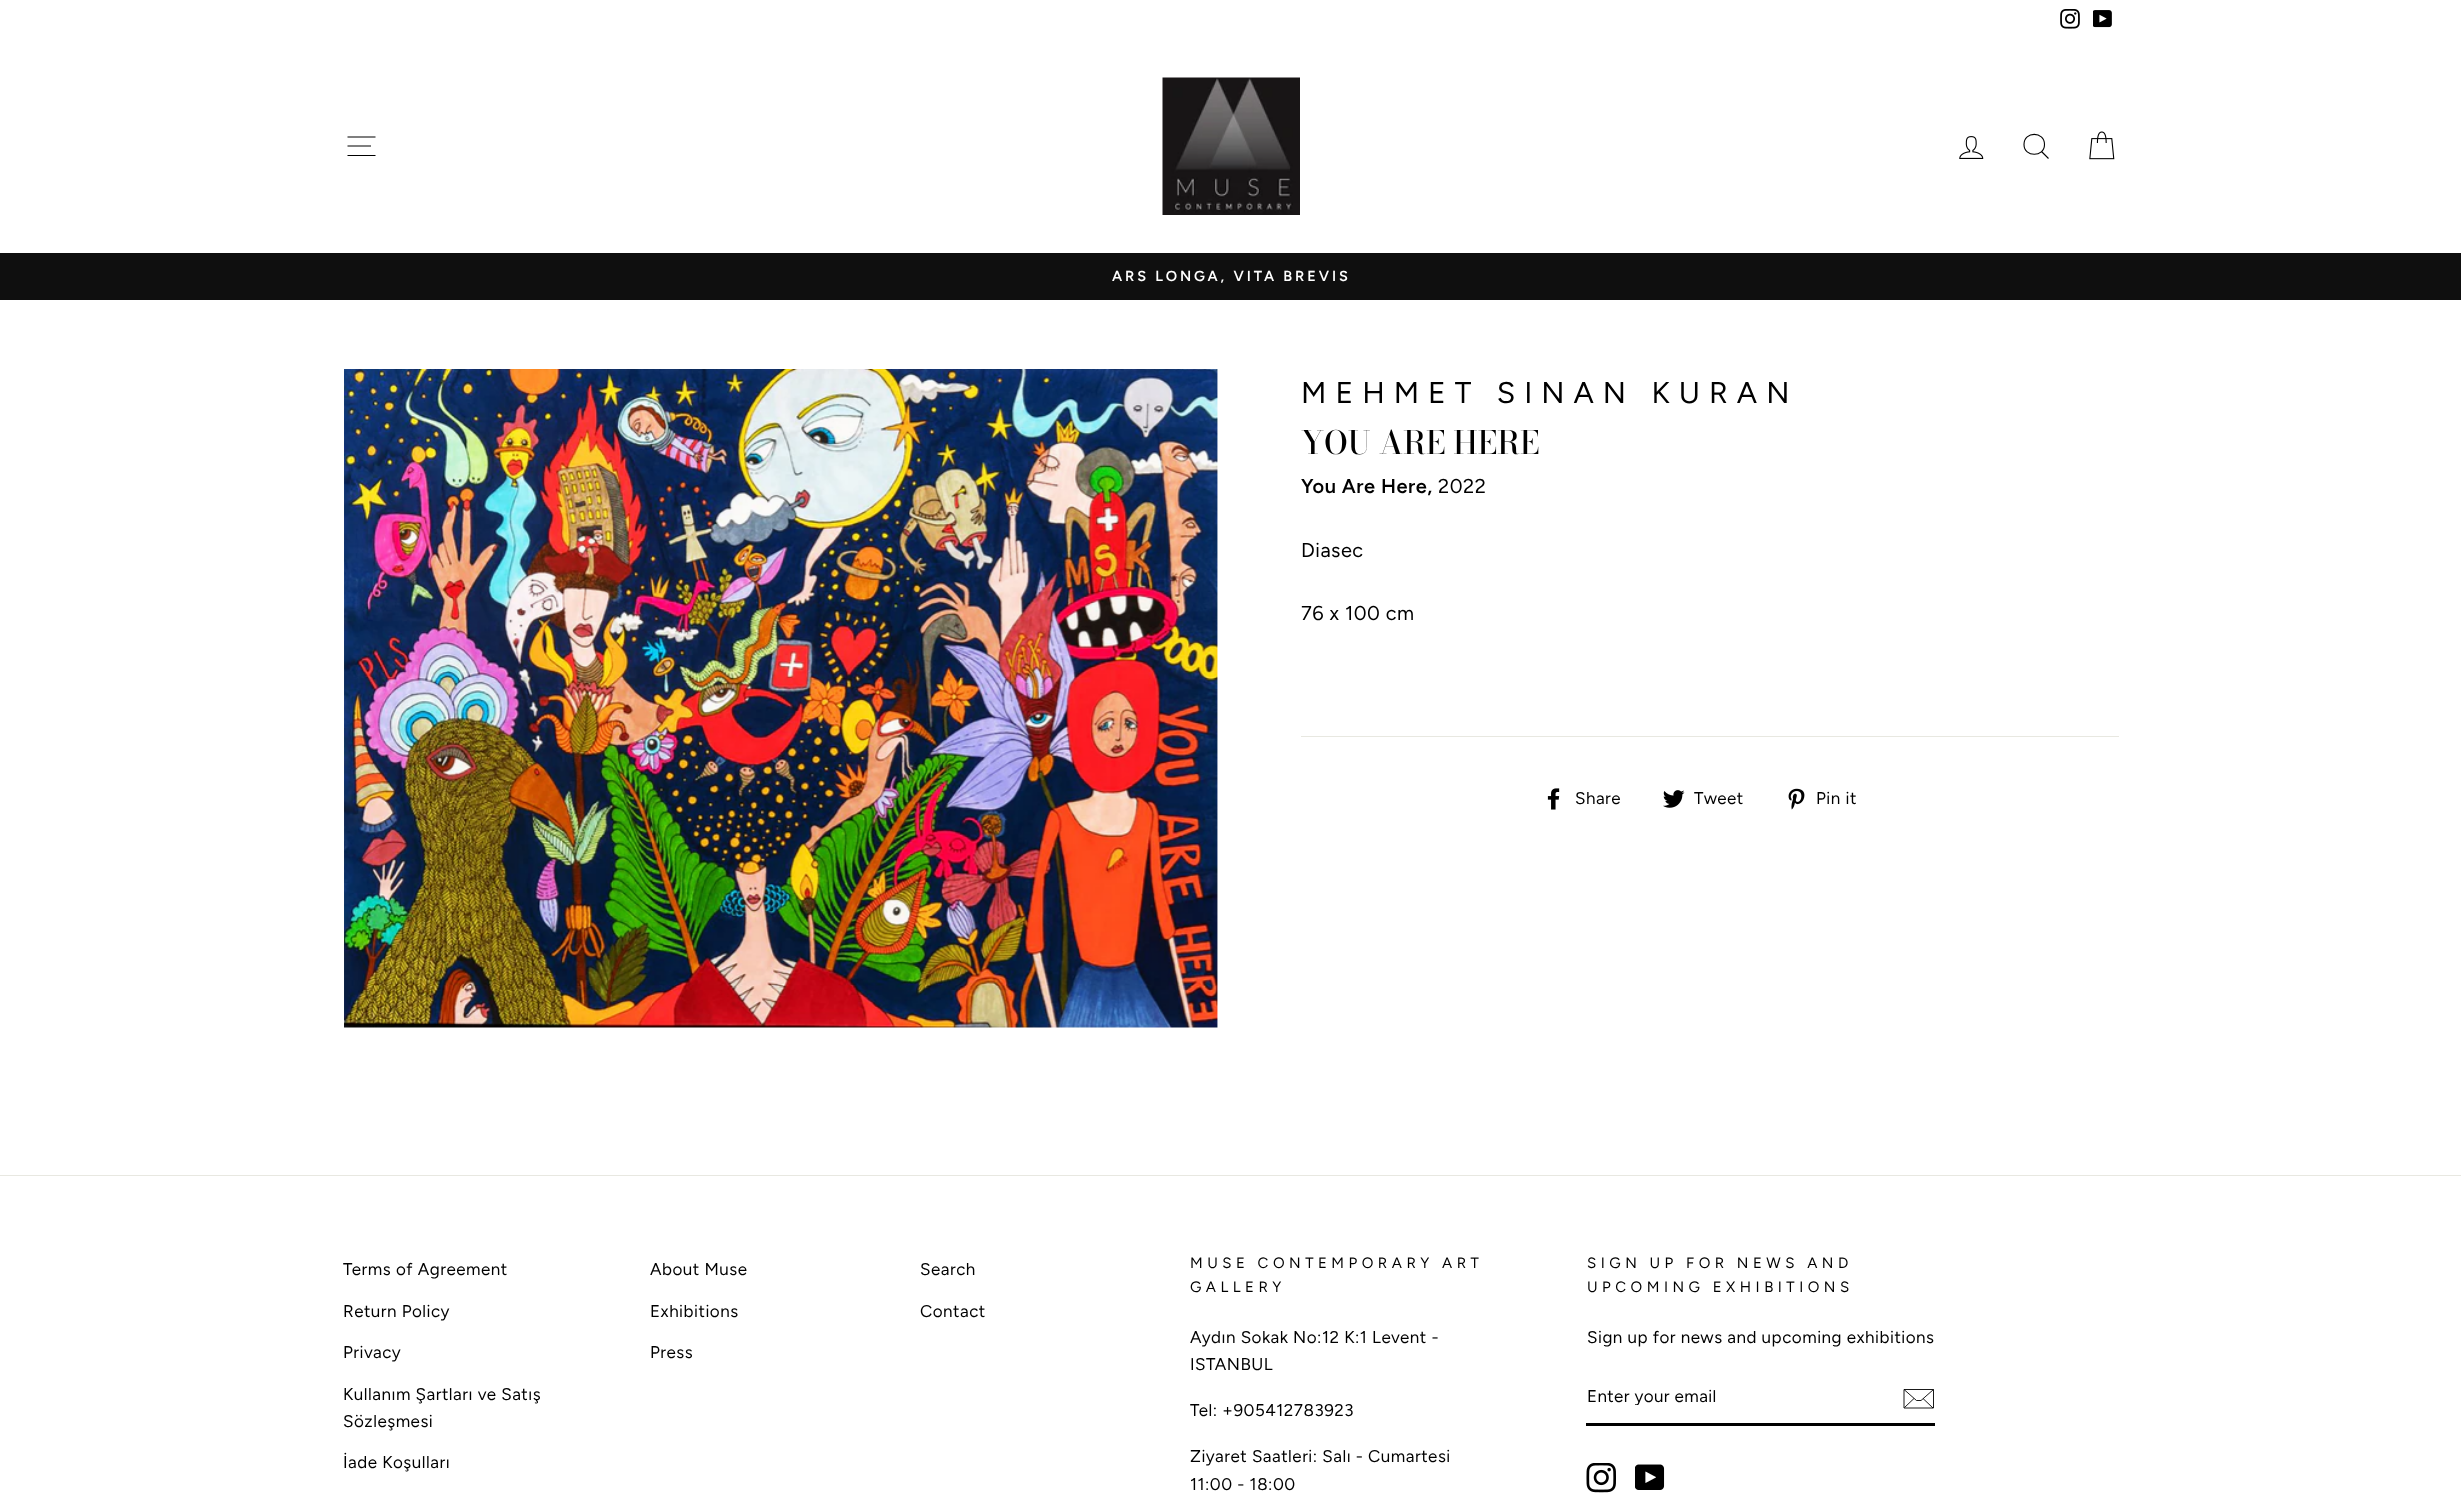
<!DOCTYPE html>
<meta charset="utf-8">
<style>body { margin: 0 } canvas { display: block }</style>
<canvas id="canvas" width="2461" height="1503"></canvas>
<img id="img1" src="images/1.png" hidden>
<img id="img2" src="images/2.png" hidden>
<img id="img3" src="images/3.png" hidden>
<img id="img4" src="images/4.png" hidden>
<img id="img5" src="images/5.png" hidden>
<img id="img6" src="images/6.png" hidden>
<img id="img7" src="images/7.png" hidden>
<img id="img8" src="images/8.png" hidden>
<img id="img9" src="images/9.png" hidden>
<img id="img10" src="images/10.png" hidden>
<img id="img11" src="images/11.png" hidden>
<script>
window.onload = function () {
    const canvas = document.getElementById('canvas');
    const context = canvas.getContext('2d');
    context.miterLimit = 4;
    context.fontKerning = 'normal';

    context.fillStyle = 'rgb(255, 255, 255)';
    context.fillRect(0, 0, 2461, 1503);
    context.drawImage(document.getElementById('img1'), 2060, 9, 20, 20);
    context.drawImage(document.getElementById('img2'), 2093, 10, 19, 18);
    context.fillStyle = 'rgba(0, 0, 0, 0.2)';
    context.filter = 'blur(0.5px)';
    context.beginPath();
    context.rect(0, 40, 2461, 213);
    context.fill();
    context.filter = 'none';
    context.fillStyle = 'rgb(255, 255, 255)';
    context.fillRect(0, 40, 2461, 213);
    context.beginPath();
    context.moveTo(347.5, 137);
    context.lineTo(375.5, 137);
    context.moveTo(347.5, 146);
    context.lineTo(371, 146);
    context.moveTo(347.5, 155.5);
    context.lineTo(375.5, 155.5);
    context.strokeStyle = 'rgb(0, 0, 0)';
    context.lineWidth = 1.1;
    context.stroke();
    context.drawImage(document.getElementById('img3'), 1162, 77, 138, 138);
    context.drawImage(document.getElementById('img4'), 1959, 136, 25, 23);
    context.beginPath();
    context.moveTo(2044.5, 144.5);
    context.bezierCurveTo(2044.5, 157.5, 2024, 157.5, 2024, 144.5);
    context.bezierCurveTo(2024, 131, 2044.5, 131, 2044.5, 144.5);
    context.closePath();
    context.moveTo(2048.5, 158.5);
    context.lineTo(2041.5, 151.5);
    context.stroke();
    context.drawImage(document.getElementById('img5'), 2089, 131, 26, 29);
    context.fillStyle = 'rgb(15, 15, 15)';
    context.fillRect(0, 253, 2461, 47);
    context.drawImage(document.getElementById('img6'), 344, 369, 874, 659);
    context.fillStyle = 'rgb(232, 232, 225)';
    context.fillRect(1301, 736, 818, 1);
    context.drawImage(document.getElementById('img7'), 1547, 788, 13, 22);
    context.drawImage(document.getElementById('img8'), 1663, 790, 22, 18);
    context.drawImage(document.getElementById('img9'), 1788, 788, 17, 22);
    context.fillRect(0, 1175, 2461, 1);
    context.fillStyle = 'rgb(0, 0, 0)';
    context.fillRect(1586, 1423, 349, 3);
    context.beginPath();
    context.moveTo(1933.5, 1408);
    context.lineTo(1904, 1408);
    context.lineTo(1904, 1389.5);
    context.lineTo(1933.5, 1389.5);
    context.closePath();
    context.moveTo(1904, 1389.5);
    context.lineTo(1916.5, 1400.5);
    context.lineTo(1921, 1400.5);
    context.lineTo(1933.5, 1389.5);
    context.moveTo(1914, 1398.5);
    context.lineTo(1904.5, 1407.5);
    context.moveTo(1933, 1408);
    context.lineTo(1923, 1398.5);
    context.lineWidth = 0.9;
    context.stroke();
    context.drawImage(document.getElementById('img10'), 1586, 1463, 30, 30);
    context.drawImage(document.getElementById('img11'), 1635, 1464, 30, 26);
    context.letterSpacing = '2.9px';
    context.font = '600 14.5px Figtree';
    context.fillStyle = 'rgb(255, 255, 255)';
    context.fillText('ARS LONGA, VITA BREVIS', 1112, 281);
    context.letterSpacing = '9px';
    context.font = '30px Figtree';
    context.fillStyle = 'rgb(0, 0, 0)';
    context.fillText('MEHMET SINAN KURAN', 1301, 403);
    context.letterSpacing = '0px';
    context.font = '500 32px Bodoni Moda';
    context.fillText('YOU ARE HERE', 1301, 454);
    context.letterSpacing = '0.5px';
    context.font = '600 20px Figtree';
    context.fillText('You Are Here,', 1301, 493);
    context.font = '20px Figtree';
    context.fillText('2022', 1438, 493);
    context.fillText('Diasec', 1301, 557);
    context.fillText('76 x 100 cm', 1301, 620);
    context.font = '17px Figtree';
    context.fillText('Share', 1575, 804);
    context.fillText('Tweet', 1694, 804);
    context.fillText('Pin it', 1816, 804);
    context.fillText('Terms of Agreement', 343, 1275);
    context.fillText('Return Policy', 343, 1317);
    context.fillText('Privacy', 343, 1358);
    context.fillText('Kullanım Şartları ve Satış', 343, 1400);
    context.fillText('Sözleşmesi', 343, 1427);
    context.fillText('İade Koşulları', 343, 1468);
    context.fillText('About Muse', 650, 1275);
    context.fillText('Exhibitions', 650, 1317);
    context.fillText('Press', 650, 1358);
    context.fillText('Search', 920, 1275);
    context.fillText('Contact', 920, 1317);
    context.letterSpacing = '4.5px';
    context.font = '15px Figtree';
    context.fillText('MUSE CONTEMPORARY ART', 1190, 1268);
    context.fillText('GALLERY', 1190, 1292);
    context.letterSpacing = '0.5px';
    context.font = '17px Figtree';
    context.fillText('Aydın Sokak No:12 K:1 Levent -', 1190, 1343);
    context.fillText('ISTANBUL', 1190, 1370);
    context.fillText('Tel: +905412783923', 1190, 1416);
    context.fillText('Ziyaret Saatleri: Salı - Cumartesi', 1190, 1462);
    context.fillText('11:00 - 18:00', 1190, 1490);
    context.letterSpacing = '4.5px';
    context.font = '15px Figtree';
    context.fillText('SIGN UP FOR NEWS AND', 1587, 1268);
    context.fillText('UPCOMING EXHIBITIONS', 1587, 1292);
    context.letterSpacing = '0.5px';
    context.font = '17px Figtree';
    context.fillText('Sign up for news and upcoming exhibitions', 1587, 1343);
    context.save();
    context.beginPath();
    context.rect(1586, 1385, 293, 20);
    context.clip();
    context.letterSpacing = '0.4px';
    context.fillText('Enter your email', 1587, 1402);
    context.restore();
};
</script>
